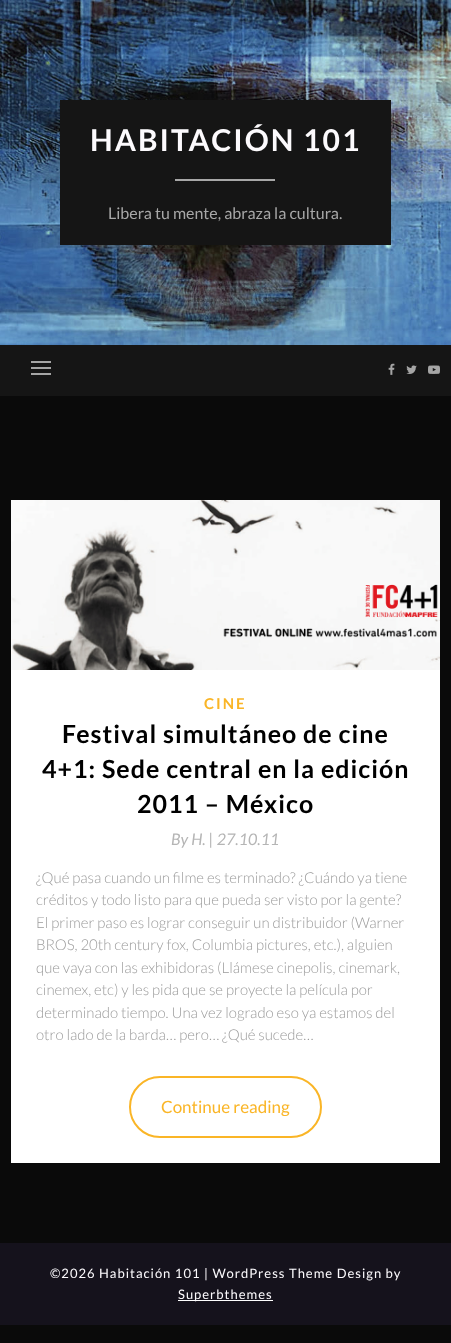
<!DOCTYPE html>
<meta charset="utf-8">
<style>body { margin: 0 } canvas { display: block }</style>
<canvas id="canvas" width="451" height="1343"></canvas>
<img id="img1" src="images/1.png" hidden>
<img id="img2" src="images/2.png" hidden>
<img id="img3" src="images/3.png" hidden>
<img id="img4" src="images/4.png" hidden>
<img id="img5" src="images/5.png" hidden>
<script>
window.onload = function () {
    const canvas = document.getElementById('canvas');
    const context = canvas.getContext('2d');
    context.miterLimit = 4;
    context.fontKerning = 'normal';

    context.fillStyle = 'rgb(10, 10, 10)';
    context.fillRect(0, 0, 451, 1343);
    context.drawImage(document.getElementById('img1'), 0, 0, 451, 345);
    context.fillStyle = 'rgb(21, 21, 21)';
    context.fillRect(60, 100, 331, 145);
    context.fillStyle = 'rgb(167, 167, 167)';
    context.fillRect(175, 179, 100, 2);
    context.fillStyle = 'rgb(21, 21, 21)';
    context.fillRect(0, 345, 451, 51);
    context.fillStyle = 'rgb(165, 165, 165)';
    context.fillRect(31, 361, 20, 2);
    context.fillRect(31, 367, 20, 2);
    context.fillRect(31, 373, 20, 2);
    context.drawImage(document.getElementById('img2'), 388, 363, 7, 12);
    context.drawImage(document.getElementById('img3'), 406, 365, 11, 9);
    context.drawImage(document.getElementById('img4'), 428, 365, 12, 9);
    context.fillStyle = 'rgb(255, 255, 255)';
    context.fillRect(11, 670, 429, 493);
    context.drawImage(document.getElementById('img5'), 11, 500, 429, 170);
    context.beginPath();
    context.roundRect(130, 1077, 191, 60, 30);
    context.strokeStyle = 'rgb(250, 181, 38)';
    context.lineWidth = 2;
    context.stroke();
    context.fillStyle = 'rgb(21, 18, 28)';
    context.fillRect(0, 1243, 451, 82);
    context.fillStyle = 'rgb(255, 255, 255)';
    context.fillRect(178, 1300, 95, 1);
    context.letterSpacing = '2px';
    context.font = 'bold 30px Lato';
    context.fillStyle = 'rgb(252, 250, 253)';
    context.fillText('HABITACIÓN 101', 90, 151);
    context.letterSpacing = '0px';
    context.font = '16px Lato';
    context.fillStyle = 'rgb(167, 167, 167)';
    context.fillText('Libera tu mente, abraza la cultura.', 108, 219);
    context.letterSpacing = '2px';
    context.font = 'bold 15px Lato';
    context.fillStyle = 'rgb(250, 181, 38)';
    context.fillText('CINE', 204, 709);
    context.letterSpacing = '1px';
    context.font = 'bold 25px Lato';
    context.fillStyle = 'rgb(0, 0, 0)';
    context.fillText('Festival simultáneo de cine', 62, 743);
    context.fillText('4+1: Sede central en la edición', 42, 778);
    context.fillText('2011 – México', 137, 813);
    context.letterSpacing = '0px';
    context.font = 'italic 16px Lato';
    context.fillStyle = 'rgb(181, 181, 181)';
    context.fillText('By H. | 27.10.11', 171, 845);
    context.font = '300 15px Lato';
    context.fillStyle = 'rgb(156, 156, 156)';
    context.fillText('¿Qué pasa cuando un filme es terminado? ¿Cuándo ya tiene', 36, 883);
    context.fillText('créditos y todo listo para que pueda ser visto por la gente?', 36, 905);
    context.fillText('El primer paso es lograr conseguir un distribuidor (Warner', 36, 928);
    context.fillText('BROS, 20th century fox, Columbia pictures, etc.), alguien', 36, 950);
    context.fillText('que vaya con las exhibidoras (Llámese cinepolis, cinemark,', 36, 973);
    context.fillText('cinemex, etc) y les pida que se proyecte la película por', 36, 995);
    context.fillText('determinado tiempo. Una vez logrado eso ya estamos del', 36, 1018);
    context.fillText('otro lado de la barda… pero… ¿Qué sucede…', 36, 1040);
    context.font = '17px Lato';
    context.fillStyle = 'rgb(250, 181, 38)';
    context.fillText('Continue reading', 161, 1113);
    context.letterSpacing = '1px';
    context.font = '13px Lato';
    context.fillStyle = 'rgb(252, 250, 253)';
    context.fillText('©2026 Habitación 101 | WordPress Theme Design by', 50, 1278);
    context.fillText('Superbthemes', 178, 1299);
};
</script>
